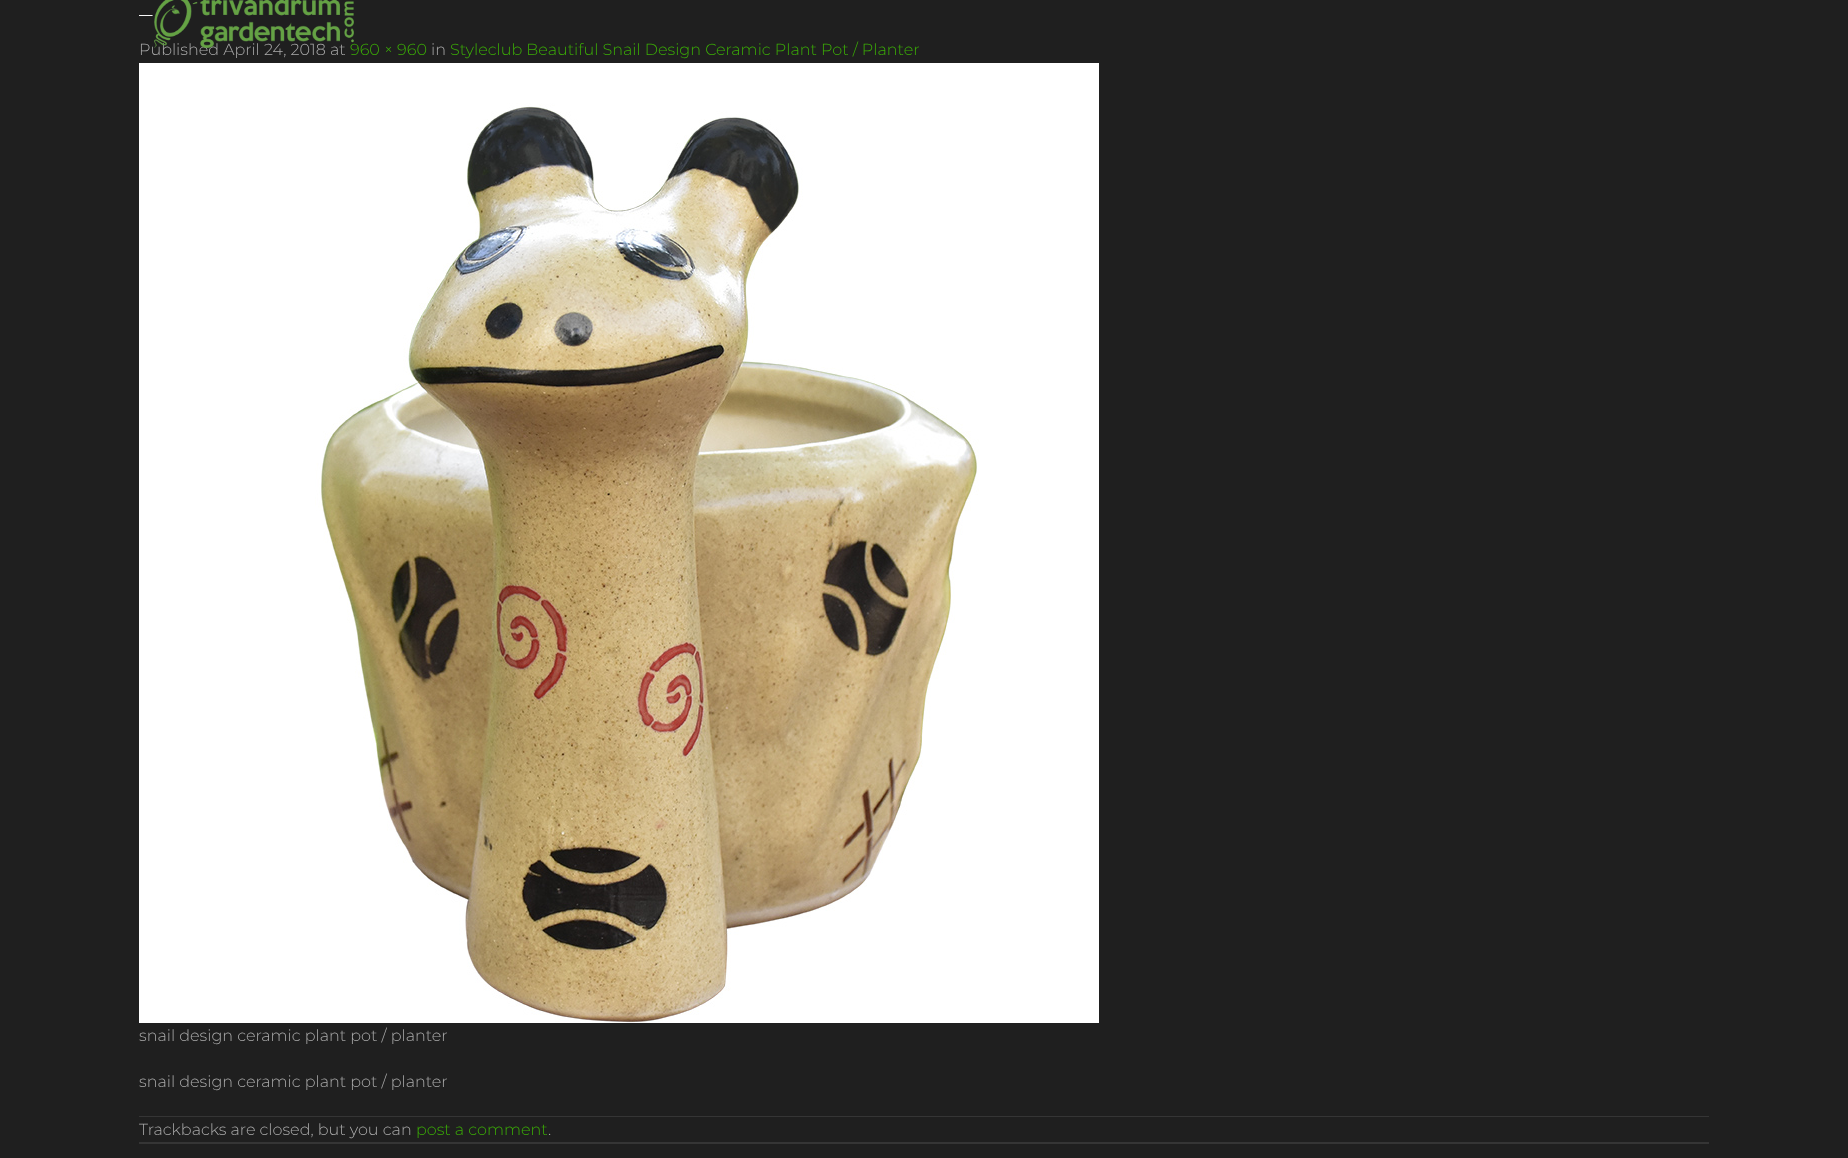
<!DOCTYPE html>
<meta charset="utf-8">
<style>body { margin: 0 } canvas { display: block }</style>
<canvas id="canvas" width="1848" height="1158"></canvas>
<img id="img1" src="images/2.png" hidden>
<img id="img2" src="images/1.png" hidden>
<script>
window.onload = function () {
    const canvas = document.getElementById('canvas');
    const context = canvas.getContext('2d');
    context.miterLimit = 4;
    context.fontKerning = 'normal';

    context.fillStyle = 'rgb(31, 31, 31)';
    context.fillRect(0, 0, 1848, 1158);
    context.drawImage(document.getElementById('img1'), 139, 63, 960, 960);
    context.fillStyle = 'rgb(53, 53, 53)';
    context.fillRect(139, 1116, 1570, 1);
    context.fillRect(139, 1142, 1570, 2);
    context.font = '300 27px Montserrat';
    context.fillStyle = 'rgb(255, 255, 255)';
    context.fillText('_', 139, 15);
    context.font = '300 16px Montserrat';
    context.fillStyle = 'rgb(170, 170, 170)';
    context.fillText('Published April 24, 2018 at', 139, 55);
    context.fillStyle = 'rgb(59, 173, 6)';
    context.fillText('960 × 960', 350, 55);
    context.drawImage(document.getElementById('img2'), 154, 0, 200, 48);
    context.fillStyle = 'rgb(170, 170, 170)';
    context.fillText('in', 431, 55);
    context.fillStyle = 'rgb(59, 173, 6)';
    context.fillText('Styleclub Beautiful Snail Design Ceramic Plant Pot / Planter', 450, 55);
    context.fillStyle = 'rgb(170, 170, 170)';
    context.fillText('snail design ceramic plant pot / planter', 139, 1041);
    context.fillText('snail design ceramic plant pot / planter', 139, 1087);
    context.fillText('Trackbacks are closed, but you can', 139, 1135);
    context.fillStyle = 'rgb(59, 173, 6)';
    context.fillText('post a comment', 416, 1135);
    context.fillStyle = 'rgb(170, 170, 170)';
    context.fillText('.', 548, 1135);
};
</script>
